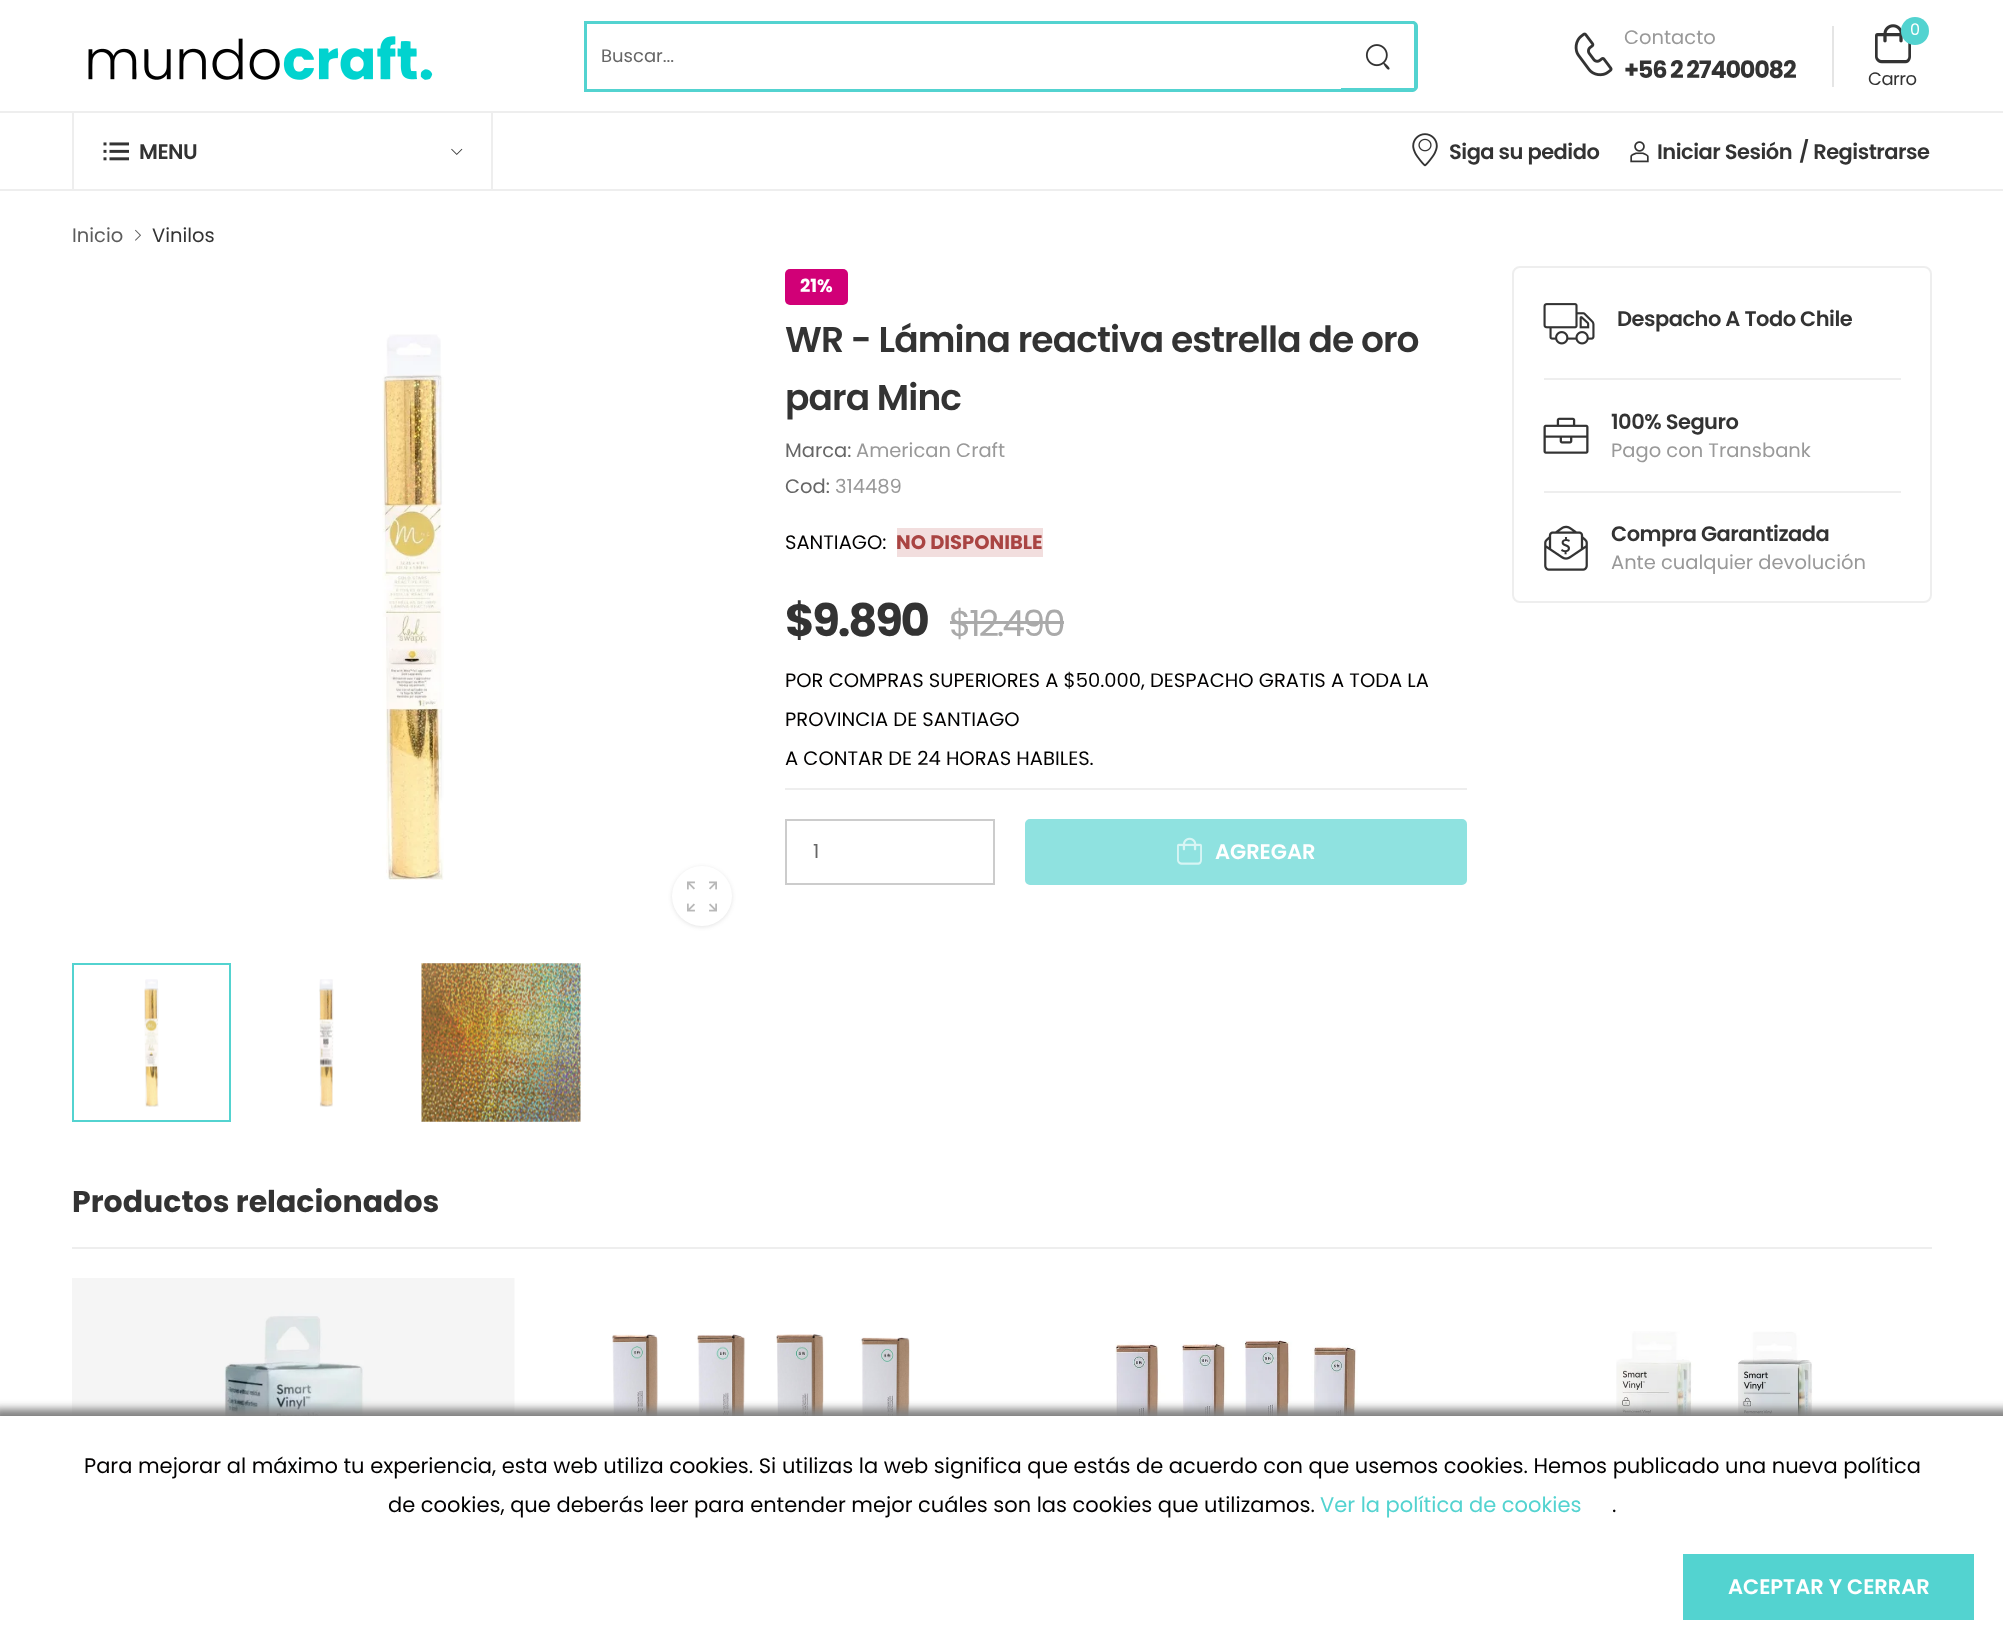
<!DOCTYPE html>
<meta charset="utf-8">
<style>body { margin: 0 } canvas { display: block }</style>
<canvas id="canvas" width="2003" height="1650"></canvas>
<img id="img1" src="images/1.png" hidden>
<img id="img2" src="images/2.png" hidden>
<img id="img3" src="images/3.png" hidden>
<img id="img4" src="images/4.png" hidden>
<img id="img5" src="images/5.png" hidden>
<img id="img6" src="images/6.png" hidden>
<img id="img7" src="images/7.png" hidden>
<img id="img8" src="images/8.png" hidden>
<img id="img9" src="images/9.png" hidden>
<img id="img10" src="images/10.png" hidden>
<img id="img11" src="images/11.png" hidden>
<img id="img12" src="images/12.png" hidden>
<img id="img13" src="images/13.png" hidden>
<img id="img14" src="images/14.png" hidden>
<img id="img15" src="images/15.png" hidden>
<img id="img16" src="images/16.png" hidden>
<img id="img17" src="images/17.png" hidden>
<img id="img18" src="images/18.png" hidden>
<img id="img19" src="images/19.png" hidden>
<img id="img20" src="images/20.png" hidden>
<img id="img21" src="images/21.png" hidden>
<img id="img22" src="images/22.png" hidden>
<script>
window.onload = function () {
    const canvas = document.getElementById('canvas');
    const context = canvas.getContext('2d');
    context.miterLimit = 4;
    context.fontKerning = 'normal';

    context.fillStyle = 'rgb(255, 255, 255)';
    context.fillRect(0, 0, 2003, 1650);
    context.fillStyle = 'rgb(238, 238, 238)';
    context.fillRect(0, 111, 2003, 2);
    context.drawImage(document.getElementById('img1'), 88, 36, 345, 44);
    context.fillStyle = 'rgb(83, 211, 208)';
    context.fillRect(584, 21, 757, 3);
    context.fillRect(584, 89, 757, 3);
    context.fillRect(584, 21, 3, 71);
    context.beginPath();
    context.moveTo(1341, 21);
    context.lineTo(1413, 21);
    context.bezierCurveTo(1415, 21, 1418, 23, 1418, 26);
    context.lineTo(1418, 87);
    context.bezierCurveTo(1418, 89, 1415, 92, 1413, 92);
    context.lineTo(1341, 92);
    context.closePath();
    context.moveTo(1341, 24);
    context.lineTo(1413, 24);
    context.bezierCurveTo(1414, 24, 1414, 25, 1414, 26);
    context.lineTo(1414, 87);
    context.bezierCurveTo(1414, 88, 1414, 88, 1413, 88);
    context.lineTo(1341, 88);
    context.closePath();
    context.fill('evenodd');
    context.drawImage(document.getElementById('img2'), 1365, 44, 25, 26);
    context.drawImage(document.getElementById('img3'), 1574, 32, 39, 45);
    context.fillStyle = 'rgb(229, 229, 229)';
    context.fillRect(1832, 26, 2, 61);
    context.drawImage(document.getElementById('img4'), 1875, 24, 36, 40);
    context.fillStyle = 'rgb(83, 211, 208)';
    context.beginPath();
    context.arc(1915, 31, 14, 0, 2 * Math.PI);
    context.fill();
    context.fillStyle = 'rgb(238, 238, 238)';
    context.fillRect(0, 189, 2003, 2);
    context.fillRect(491, 113, 2, 76);
    context.fillRect(72, 113, 2, 76);
    context.drawImage(document.getElementById('img5'), 103, 142, 26, 19);
    context.drawImage(document.getElementById('img6'), 451, 148, 12, 7);
    context.drawImage(document.getElementById('img7'), 1412, 133, 26, 34);
    context.drawImage(document.getElementById('img8'), 1630, 141, 19, 22);
    context.drawImage(document.getElementById('img9'), 135, 229, 6, 12);
    context.drawImage(document.getElementById('img10'), 382, 334, 62, 546);
    context.fillStyle = 'rgba(77, 77, 77, 0.15)';
    context.filter = 'blur(2px)';
    context.beginPath();
    context.roundRect(672, 867, 60, 60, 30);
    context.fill();
    context.filter = 'none';
    context.fillStyle = 'rgb(255, 255, 255)';
    context.beginPath();
    context.arc(702, 896, 30, 0, 2 * Math.PI);
    context.fill();
    context.drawImage(document.getElementById('img11'), 687, 881, 30, 31);
    context.drawImage(document.getElementById('img12'), 144, 979, 15, 128);
    context.strokeStyle = 'rgb(83, 211, 208)';
    context.lineWidth = 2;
    context.strokeRect(73, 964, 157, 157);
    context.drawImage(document.getElementById('img13'), 319, 979, 15, 128);
    context.drawImage(document.getElementById('img14'), 421, 963, 160, 159);
    context.fillStyle = 'rgb(209, 0, 119)';
    context.beginPath();
    context.roundRect(785, 269, 63, 36, 5);
    context.fill();
    context.fillStyle = 'rgb(242, 222, 222)';
    context.fillRect(897, 528, 146, 29);
    context.fillStyle = 'rgb(170, 170, 170)';
    context.fillRect(950, 621, 114, 3);
    context.fillStyle = 'rgb(238, 238, 238)';
    context.fillRect(785, 788, 682, 2);
    context.strokeStyle = 'rgb(204, 204, 204)';
    context.strokeRect(786, 820, 208, 64);
    context.fillStyle = 'rgb(143, 226, 224)';
    context.beginPath();
    context.roundRect(1026.5, 820.5, 439, 63, 3.5);
    context.fill();
    context.strokeStyle = 'rgb(143, 226, 224)';
    context.lineWidth = 3;
    context.stroke();
    context.drawImage(document.getElementById('img15'), 1177, 837, 25, 28);
    context.beginPath();
    context.roundRect(1513, 267, 418, 335, 7);
    context.strokeStyle = 'rgb(238, 238, 238)';
    context.lineWidth = 2;
    context.stroke();
    context.fillStyle = 'rgb(238, 238, 238)';
    context.fillRect(1544, 378, 357, 2);
    context.drawImage(document.getElementById('img16'), 1543, 303, 52, 42);
    context.fillRect(1544, 491, 357, 2);
    context.drawImage(document.getElementById('img17'), 1543, 417, 46, 37);
    context.drawImage(document.getElementById('img18'), 1544, 525, 44, 46);
    context.fillRect(72, 1247, 1860, 2);
    context.drawImage(document.getElementById('img19'), 72, 1278, 443, 138);
    context.drawImage(document.getElementById('img20'), 612, 1334, 298, 82);
    context.drawImage(document.getElementById('img21'), 1115, 1340, 243, 76);
    context.drawImage(document.getElementById('img22'), 1616, 1331, 197, 85);
    context.fillStyle = 'rgb(128, 128, 128)';
    context.filter = 'blur(4px)';
    context.beginPath();
    context.rect(-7, 1409, 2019, 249);
    context.fill();
    context.filter = 'none';
    context.fillStyle = 'rgb(255, 255, 255)';
    context.fillRect(0, 1416, 2003, 234);
    context.fillStyle = 'rgb(83, 211, 208)';
    context.fillRect(1683, 1554, 291, 66);
    context.font = '18px Poppins';
    context.fillStyle = 'rgb(102, 102, 102)';
    context.fillText('Buscar...', 601, 62);
    context.font = '19.5px Poppins';
    context.fillStyle = 'rgb(153, 153, 153)';
    context.fillText('Contacto', 1624, 44);
    context.letterSpacing = '-1.25px';
    context.font = 'bold 24px Poppins';
    context.fillStyle = 'rgb(51, 51, 51)';
    context.fillText('+56 2 27400082', 1624, 78);
    context.letterSpacing = '0px';
    context.font = '16px Poppins';
    context.fillStyle = 'rgb(255, 255, 255)';
    context.fillText('0', 1910, 35);
    context.letterSpacing = '-0.5px';
    context.font = '18px Poppins';
    context.fillStyle = 'rgb(51, 51, 51)';
    context.fillText('Carro', 1868, 85);
    context.font = '600 21px Poppins';
    context.fillText('MENU', 139, 159);
    context.fillText('Siga su pedido', 1449, 159);
    context.fillText('Iniciar Sesión', 1657, 159);
    context.fillText('/ Registrarse', 1799, 159);
    context.letterSpacing = '0px';
    context.font = '19.5px Poppins';
    context.fillStyle = 'rgb(92, 92, 92)';
    context.fillText('Inicio', 72, 242);
    context.fillStyle = 'rgb(51, 51, 51)';
    context.fillText('Vinilos', 152, 242);
    context.font = 'bold 18px Poppins';
    context.fillStyle = 'rgb(255, 255, 255)';
    context.fillText('21%', 800, 292);
    context.letterSpacing = '-0.9px';
    context.font = '600 36px Poppins';
    context.fillStyle = 'rgb(51, 51, 51)';
    context.fillText('WR - Lámina reactiva estrella de oro', 785, 352);
    context.fillText('para Minc', 785, 410);
    context.letterSpacing = '0px';
    context.font = '19.5px Poppins';
    context.fillStyle = 'rgb(102, 102, 102)';
    context.fillText('Marca:', 785, 457);
    context.fillStyle = 'rgb(153, 153, 153)';
    context.fillText('American Craft', 856, 457);
    context.fillStyle = 'rgb(102, 102, 102)';
    context.fillText('Cod:', 785, 493);
    context.fillStyle = 'rgb(153, 153, 153)';
    context.fillText('314489', 835, 493);
    context.fillStyle = 'rgb(2, 1, 1)';
    context.fillText('SANTIAGO:', 785, 549);
    context.font = 'bold 19.5px Poppins';
    context.fillStyle = 'rgb(169, 68, 66)';
    context.fillText('NO DISPONIBLE', 896, 549);
    context.letterSpacing = '-2.25px';
    context.font = 'bold 45px Poppins';
    context.fillStyle = 'rgb(51, 51, 51)';
    context.fillText('$9.890', 785, 636);
    context.font = '36px Poppins';
    context.fillStyle = 'rgb(170, 170, 170)';
    context.fillText('$12.490', 949, 636);
    context.letterSpacing = '0px';
    context.font = '19.5px Poppins';
    context.fillStyle = 'rgb(2, 1, 1)';
    context.fillText('POR COMPRAS SUPERIORES A $50.000, DESPACHO GRATIS A TODA LA', 785, 687);
    context.fillText('PROVINCIA DE SANTIAGO', 785, 726);
    context.fillText('A CONTAR DE 24 HORAS HABILES.', 785, 765);
    context.fillStyle = 'rgb(102, 102, 102)';
    context.fillText('1', 813, 858);
    context.font = '600 21px Poppins';
    context.fillStyle = 'rgb(255, 255, 255)';
    context.fillText('AGREGAR', 1215, 859);
    context.letterSpacing = '-0.5px';
    context.fillStyle = 'rgb(51, 51, 51)';
    context.fillText('Despacho A Todo Chile', 1617, 326);
    context.fillText('100% Seguro', 1611, 429);
    context.letterSpacing = '0px';
    context.font = '19.5px Poppins';
    context.fillStyle = 'rgb(153, 153, 153)';
    context.fillText('Pago con Transbank', 1611, 457);
    context.letterSpacing = '-0.5px';
    context.font = '600 21px Poppins';
    context.fillStyle = 'rgb(51, 51, 51)';
    context.fillText('Compra Garantizada', 1611, 541);
    context.letterSpacing = '0px';
    context.font = '19.5px Poppins';
    context.fillStyle = 'rgb(153, 153, 153)';
    context.fillText('Ante cualquier devolución', 1611, 569);
    context.font = 'bold 30px Poppins';
    context.fillStyle = 'rgb(51, 51, 51)';
    context.fillText('Productos relacionados', 72, 1212);
    context.font = '21px Poppins';
    context.fillStyle = 'rgb(2, 1, 1)';
    context.fillText('Para mejorar al máximo tu experiencia, esta web utiliza cookies. Si utilizas la web significa que estás de acuerdo con que usemos cookies. Hemos publicado una nueva política', 84, 1473);
    context.fillText('de cookies, que deberás leer para entender mejor cuáles son las cookies que utilizamos.', 388, 1512);
    context.fillStyle = 'rgb(83, 211, 208)';
    context.fillText('Ver la política de cookies', 1320, 1512);
    context.fillStyle = 'rgb(2, 1, 1)';
    context.fillText('.', 1612, 1512);
    context.font = '600 21px Poppins';
    context.fillStyle = 'rgb(255, 255, 255)';
    context.fillText('ACEPTAR Y CERRAR', 1728, 1594);
};
</script>
